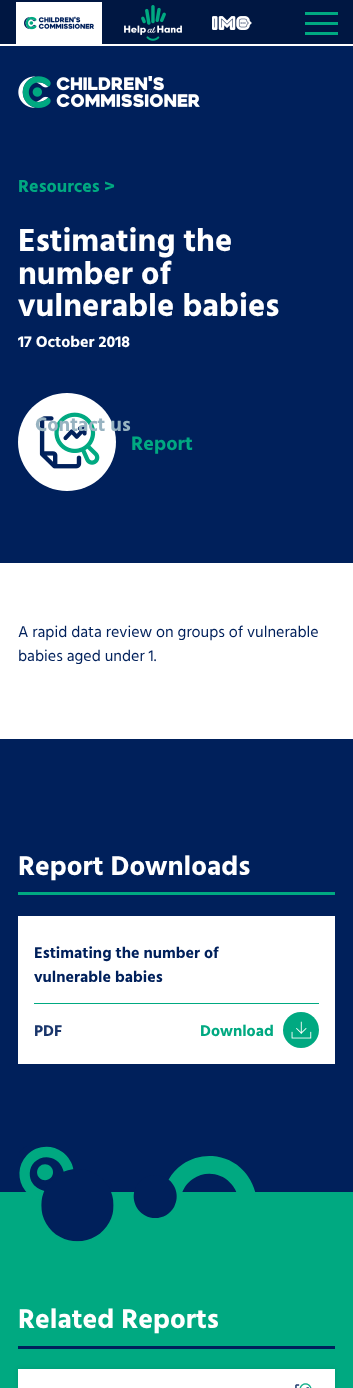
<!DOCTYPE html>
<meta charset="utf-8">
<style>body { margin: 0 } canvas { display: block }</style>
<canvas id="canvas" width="353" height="1388"></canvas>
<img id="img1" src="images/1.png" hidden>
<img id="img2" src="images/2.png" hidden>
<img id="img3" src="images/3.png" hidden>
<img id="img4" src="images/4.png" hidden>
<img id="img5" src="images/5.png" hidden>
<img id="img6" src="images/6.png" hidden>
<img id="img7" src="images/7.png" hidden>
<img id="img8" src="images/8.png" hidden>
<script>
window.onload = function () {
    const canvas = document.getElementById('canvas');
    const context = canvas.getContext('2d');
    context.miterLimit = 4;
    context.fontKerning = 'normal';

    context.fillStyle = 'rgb(255, 255, 255)';
    context.fillRect(0, 0, 353, 1388);
    context.fillStyle = 'rgb(0, 32, 91)';
    context.fillRect(0, 46, 353, 517);
    context.fillStyle = 'rgb(255, 255, 255)';
    context.beginPath();
    context.arc(67, 442, 49, 0, 2 * Math.PI);
    context.fill();
    context.drawImage(document.getElementById('img1'), 39, 412, 61, 57);
    context.fillStyle = 'rgb(0, 32, 91)';
    context.fillRect(0, 739, 353, 453);
    context.fillStyle = 'rgb(0, 169, 129)';
    context.fillRect(18, 892, 317, 3);
    context.fillStyle = 'rgb(255, 255, 255)';
    context.fillRect(18, 916, 317, 148);
    context.fillStyle = 'rgb(0, 169, 129)';
    context.fillRect(34, 1003, 285, 1);
    context.beginPath();
    context.arc(301, 1030, 18, 0, 2 * Math.PI);
    context.fill();
    context.drawImage(document.getElementById('img2'), 291, 1021, 21, 18);
    context.fillRect(0, 1192, 353, 196);
    context.drawImage(document.getElementById('img3'), 19, 1146, 237, 96);
    context.fillStyle = 'rgb(0, 32, 91)';
    context.fillRect(18, 1346, 317, 3);
    context.fillStyle = 'rgba(0, 0, 0, 0.1)';
    context.filter = 'blur(2.5px)';
    context.beginPath();
    context.rect(18, 1369, 317, 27);
    context.fill();
    context.filter = 'none';
    context.fillStyle = 'rgb(255, 255, 255)';
    context.fillRect(18, 1369, 317, 19);
    context.drawImage(document.getElementById('img4'), 295, 1383, 17, 5);
    context.fillStyle = 'rgb(0, 23, 66)';
    context.fillRect(0, 0, 353, 44);
    context.fillStyle = 'rgb(255, 255, 255)';
    context.fillRect(16, 2, 86, 42);
    context.drawImage(document.getElementById('img5'), 24, 16, 70, 14);
    context.drawImage(document.getElementById('img6'), 124, 5, 58, 36);
    context.drawImage(document.getElementById('img7'), 212, 16, 40, 14);
    context.fillStyle = 'rgb(0, 169, 129)';
    context.fillRect(305, 22, 33, 3);
    context.fillRect(305, 12, 33, 3);
    context.fillRect(305, 32, 33, 3);
    context.drawImage(document.getElementById('img8'), 18, 76, 182, 32);
    context.font = 'bold 18px Hind Vadodara';
    context.fillText('Resources >', 18, 192);
    context.font = 'bold 32.5px Hind Vadodara';
    context.fillStyle = 'rgb(255, 255, 255)';
    context.fillText('Estimating the', 18, 251);
    context.fillText('number of', 18, 284);
    context.fillText('vulnerable babies', 18, 316);
    context.font = 'bold 16px Hind Vadodara';
    context.fillText('17 October 2018', 18, 347);
    context.font = 'bold 20px Hind Vadodara';
    context.fillStyle = 'rgb(0, 169, 129)';
    context.fillText('Report', 131, 450);
    context.font = '16px Hind Vadodara';
    context.fillStyle = 'rgb(0, 32, 91)';
    context.fillText('A rapid data review on groups of vulnerable', 18, 637);
    context.fillText('babies aged under 1.', 18, 661);
    context.font = 'bold 27.75px Hind Vadodara';
    context.fillStyle = 'rgb(255, 255, 255)';
    context.fillText('Report Downloads', 18, 875);
    context.font = 'bold 16px Hind Vadodara';
    context.fillStyle = 'rgb(0, 32, 91)';
    context.fillText('Estimating the number of', 34, 958);
    context.fillText('vulnerable babies', 34, 982);
    context.fillStyle = 'rgb(26, 54, 107)';
    context.fillText('PDF', 34, 1036);
    context.fillStyle = 'rgb(0, 169, 129)';
    context.fillText('Download', 200, 1036);
    context.font = 'bold 27.75px Hind Vadodara';
    context.fillStyle = 'rgb(255, 255, 255)';
    context.fillText('Related Reports', 18, 1328);
    context.font = 'bold 20px Hind Vadodara';
    context.fillStyle = 'rgb(152, 179, 193)';
    context.fillText('Contact us', 35, 431);
};
</script>
